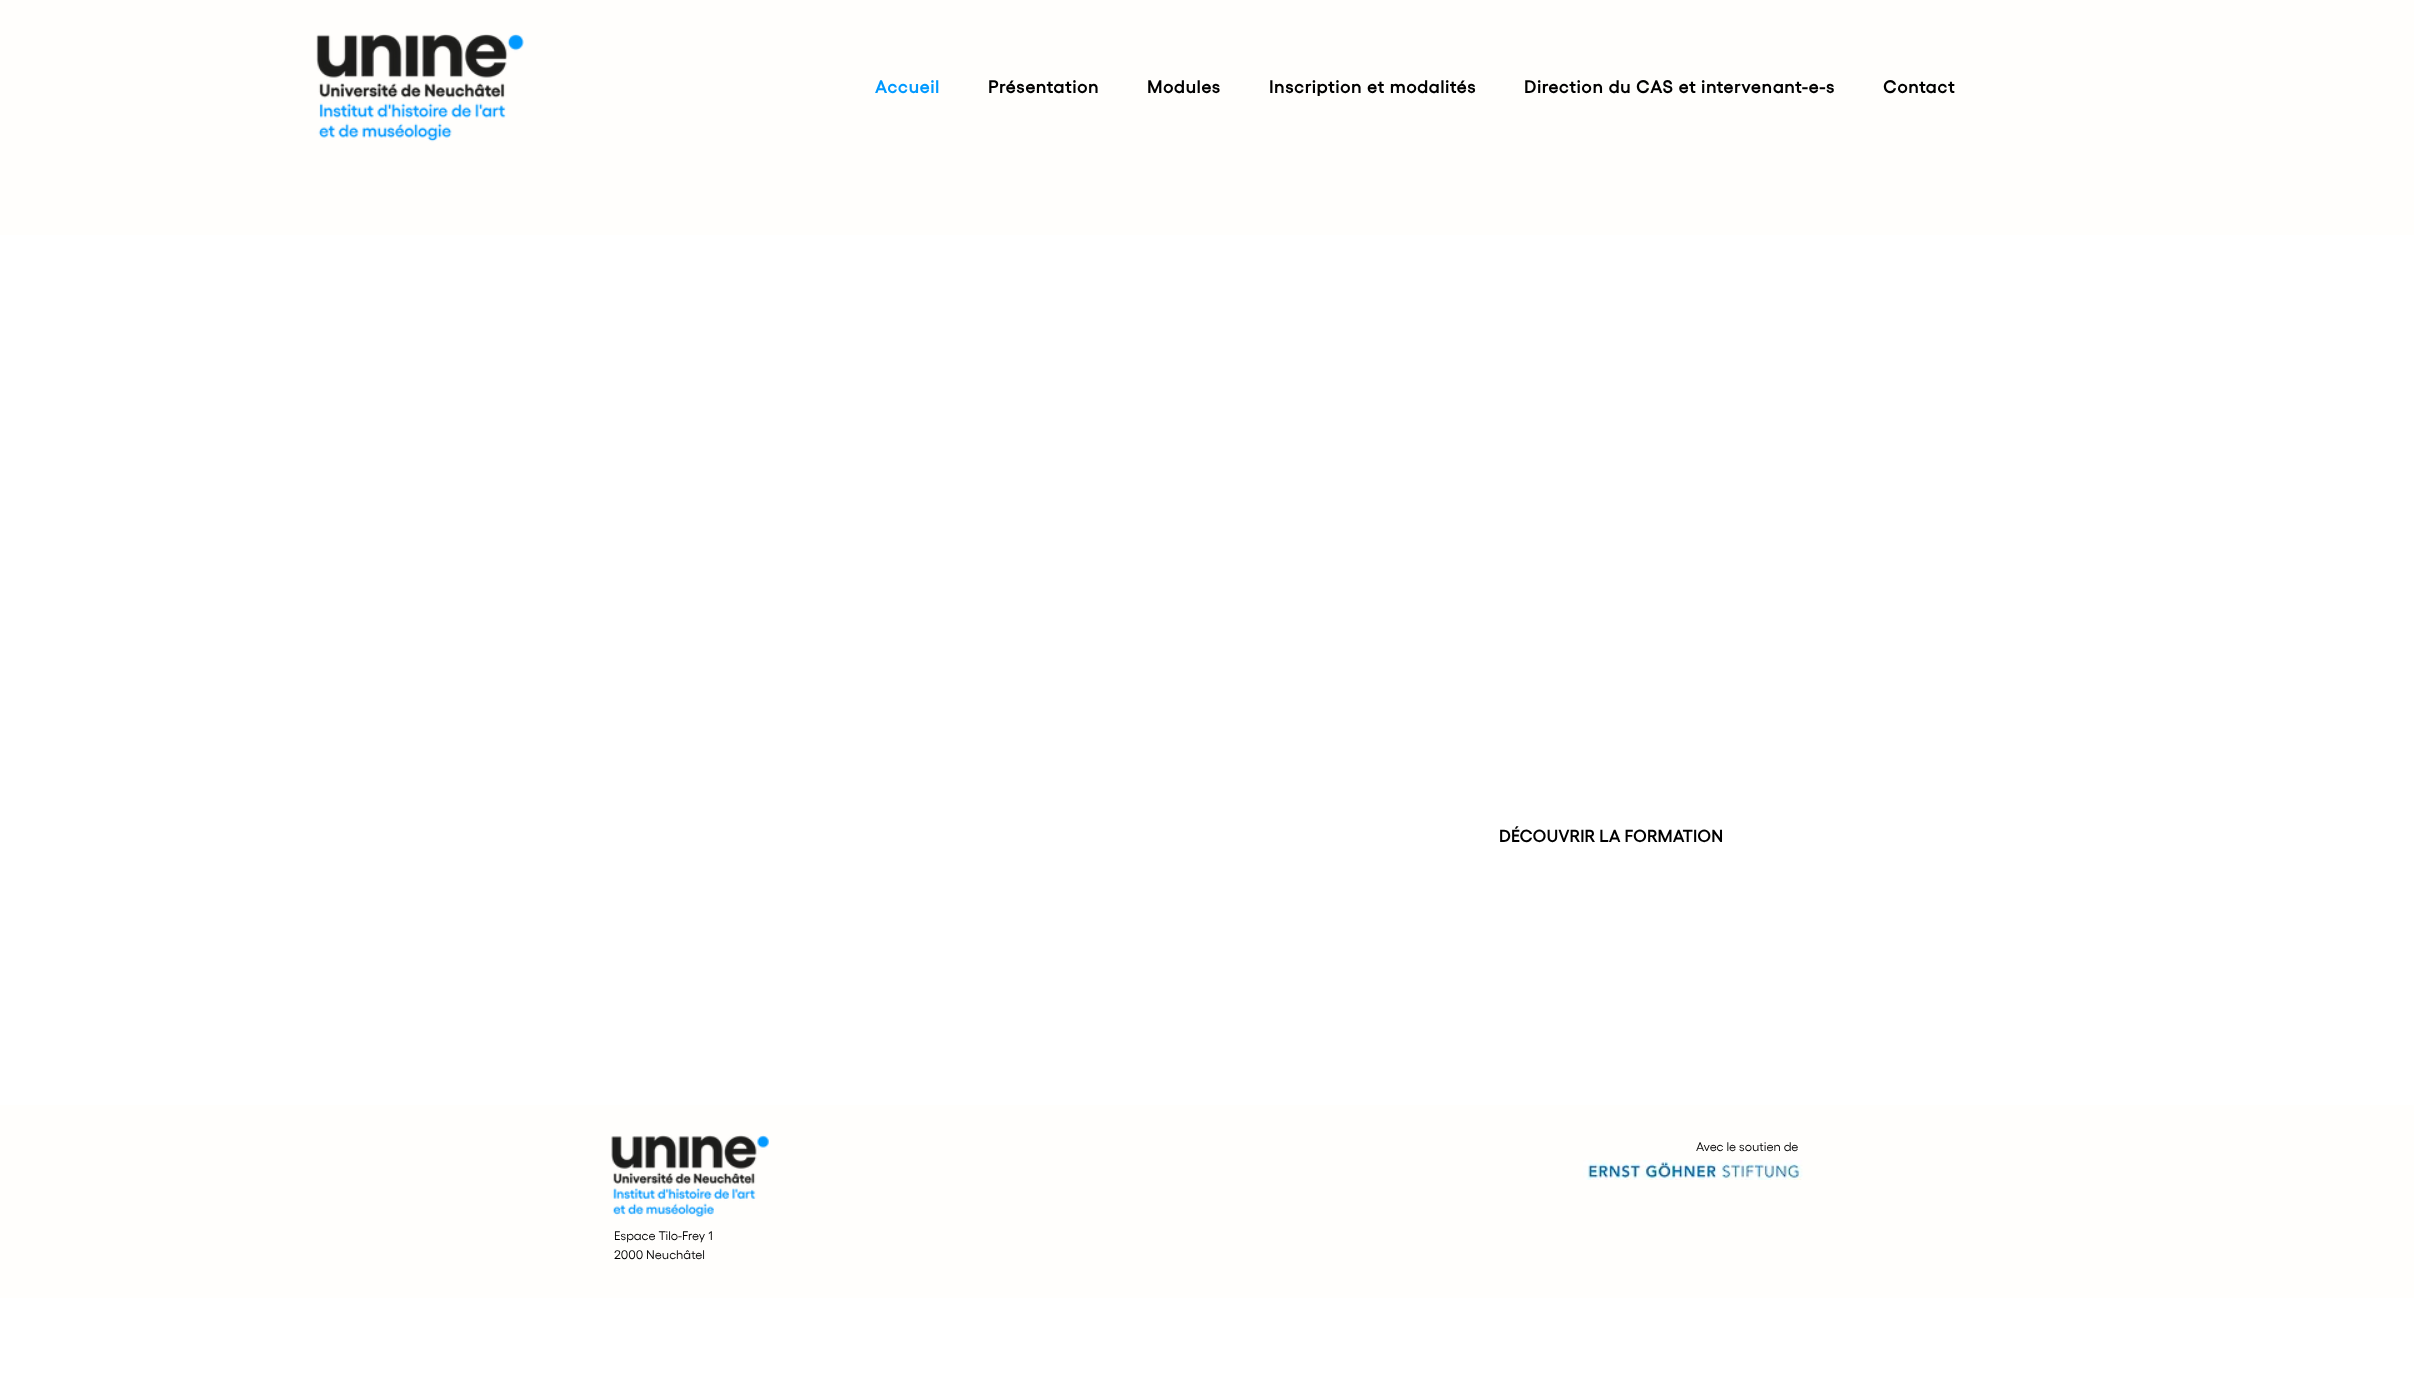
<!DOCTYPE html>
<meta charset="utf-8">
<style>body { margin: 0 } canvas { display: block }</style>
<canvas id="canvas" width="2414" height="1395"></canvas>
<img id="img1" src="images/1.png" hidden>
<img id="img2" src="images/2.png" hidden>
<img id="img3" src="images/3.png" hidden>
<script>
window.onload = function () {
    const canvas = document.getElementById('canvas');
    const context = canvas.getContext('2d');
    context.miterLimit = 4;
    context.fontKerning = 'normal';

    context.fillStyle = 'rgb(255, 255, 255)';
    context.fillRect(0, 0, 2414, 1395);
    context.fillStyle = 'rgb(255, 254, 252)';
    context.fillRect(0, 0, 2414, 235);
    context.drawImage(document.getElementById('img1'), 316, 34, 208, 108);
    context.fillRect(0, 1105, 2414, 193);
    context.drawImage(document.getElementById('img2'), 611, 1135, 158, 83);
    context.drawImage(document.getElementById('img3'), 1583, 1160, 220, 20);
    context.letterSpacing = '0.9px';
    context.font = 'bold 17.5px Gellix';
    context.fillStyle = 'rgb(0, 153, 255)';
    context.fillText('Accueil', 875, 93);
    context.fillStyle = 'rgb(0, 0, 0)';
    context.fillText('Présentation', 988, 93);
    context.fillText('Modules', 1147, 93);
    context.fillText('Inscription et modalités', 1269, 93);
    context.fillText('Direction du CAS et intervenant-e-s', 1524, 93);
    context.fillText('Contact', 1883, 93);
    context.letterSpacing = '0px';
    context.font = '600 17.5px Gellix';
    context.fillText('DÉCOUVRIR LA FORMATION', 1499, 842);
    context.font = '12.5px Gellix';
    context.fillText('Avec le soutien de', 1696, 1151);
    context.fillText('Espace Tilo-Frey 1', 614, 1240);
    context.fillText('2000 Neuchâtel', 614, 1259);
};
</script>
